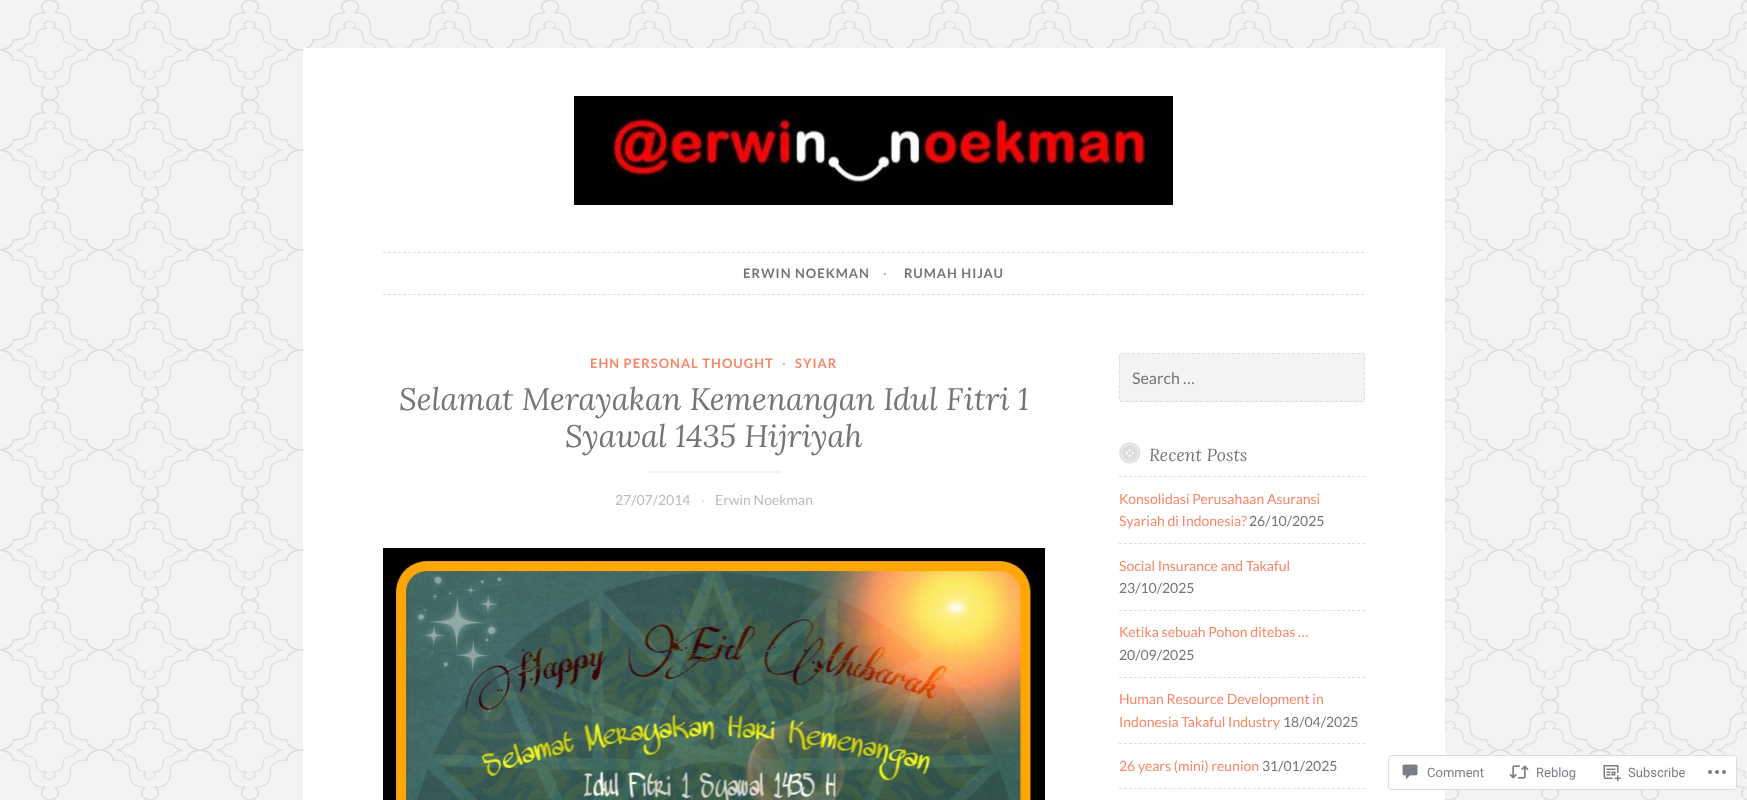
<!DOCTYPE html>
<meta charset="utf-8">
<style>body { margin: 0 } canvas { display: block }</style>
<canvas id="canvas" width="1747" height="800"></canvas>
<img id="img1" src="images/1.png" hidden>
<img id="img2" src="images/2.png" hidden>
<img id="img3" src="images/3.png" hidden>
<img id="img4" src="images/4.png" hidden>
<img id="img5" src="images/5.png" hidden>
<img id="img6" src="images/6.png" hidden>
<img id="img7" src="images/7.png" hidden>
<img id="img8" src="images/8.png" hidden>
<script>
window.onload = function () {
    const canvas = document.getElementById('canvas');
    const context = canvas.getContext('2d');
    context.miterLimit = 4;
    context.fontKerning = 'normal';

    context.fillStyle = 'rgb(243, 243, 243)';
    context.fillRect(0, 0, 1747, 800);
    context.drawImage(document.getElementById('img1'), 0, 0, 1747, 800);
    context.fillStyle = 'rgb(255, 255, 255)';
    context.fillRect(303, 48, 1142, 752);
    context.drawImage(document.getElementById('img2'), 574, 96, 599, 109);
    context.beginPath();
    context.moveTo(383, 252.5);
    context.lineTo(1365, 252.5);
    context.strokeStyle = 'rgb(221, 221, 221)';
    context.setLineDash([3, 1.99]);
    context.stroke();
    context.beginPath();
    context.moveTo(383, 294.5);
    context.lineTo(1365, 294.5);
    context.stroke();
    context.fillStyle = 'rgb(243, 243, 243)';
    context.fillRect(648, 471, 132, 2);
    context.drawImage(document.getElementById('img3'), 383, 548, 662, 252);
    context.beginPath();
    context.roundRect(1119, 353, 246, 49, 3);
    context.fill();
    context.beginPath();
    context.moveTo(1122, 353.5);
    context.lineTo(1362, 353.5);
    context.bezierCurveTo(1363.5, 353.5, 1364.5, 354.5, 1364.5, 356);
    context.lineTo(1364.5, 399);
    context.bezierCurveTo(1364.5, 400.5, 1363.5, 401.5, 1362, 401.5);
    context.lineTo(1122, 401.5);
    context.bezierCurveTo(1120.5, 401.5, 1119.5, 400.5, 1119.5, 399);
    context.lineTo(1119.5, 356);
    context.bezierCurveTo(1119.5, 354.5, 1120.5, 353.5, 1122, 353.5);
    context.closePath();
    context.setLineDash([3, 2]);
    context.stroke();
    context.drawImage(document.getElementById('img4'), 1119, 442, 22, 22);
    context.beginPath();
    context.moveTo(1119, 476.5);
    context.lineTo(1365, 476.5);
    context.setLineDash([3, 1.96]);
    context.stroke();
    context.beginPath();
    context.moveTo(1119, 543.5);
    context.lineTo(1365, 543.5);
    context.stroke();
    context.beginPath();
    context.moveTo(1119, 610.5);
    context.lineTo(1365, 610.5);
    context.stroke();
    context.beginPath();
    context.moveTo(1119, 677.5);
    context.lineTo(1365, 677.5);
    context.stroke();
    context.beginPath();
    context.moveTo(1119, 743.5);
    context.lineTo(1365, 743.5);
    context.stroke();
    context.beginPath();
    context.moveTo(1119, 788.5);
    context.lineTo(1365, 788.5);
    context.stroke();
    context.fillStyle = 'rgba(255, 255, 255, 0.98)';
    context.beginPath();
    context.roundRect(1388, 755, 349, 35, 3);
    context.fill();
    context.beginPath();
    context.roundRect(1388.5, 755.5, 348, 34, 2.5);
    context.strokeStyle = 'rgba(220, 220, 222, 0.98)';
    context.setLineDash([]);
    context.stroke();
    context.drawImage(document.getElementById('img5'), 1402, 764, 16, 16);
    context.drawImage(document.getElementById('img6'), 1509, 765, 20, 14);
    context.drawImage(document.getElementById('img7'), 1603, 765, 18, 17);
    context.drawImage(document.getElementById('img8'), 1708, 770, 18, 4);
    context.letterSpacing = '1px';
    context.font = 'bold 13px Lato';
    context.fillStyle = 'rgb(117, 117, 117)';
    context.fillText('ERWIN NOEKMAN', 743, 278);
    context.fillStyle = 'rgb(187, 187, 187)';
    context.fillText('·', 883, 278);
    context.fillStyle = 'rgb(117, 117, 117)';
    context.fillText('RUMAH HIJAU', 904, 278);
    context.fillStyle = 'rgb(247, 135, 105)';
    context.fillText('EHN PERSONAL THOUGHT', 590, 368);
    context.fillStyle = 'rgb(187, 187, 187)';
    context.fillText('·', 782, 368);
    context.fillStyle = 'rgb(247, 135, 105)';
    context.fillText('SYIAR', 795, 368);
    context.letterSpacing = '0px';
    context.font = 'italic 31.25px Lora';
    context.fillStyle = 'rgb(117, 117, 117)';
    context.fillText('Selamat Merayakan Kemenangan Idul Fitri 1', 399, 410);
    context.fillText('Syawal 1435 Hijriyah', 565, 447);
    context.font = '14px Lato';
    context.fillStyle = 'rgb(187, 187, 187)';
    context.fillText('27/07/2014', 615, 505);
    context.fillStyle = 'rgb(221, 221, 221)';
    context.fillText('·', 701, 505);
    context.fillStyle = 'rgb(187, 187, 187)';
    context.fillText('Erwin Noekman', 715, 505);
    context.font = '16px Lato';
    context.fillStyle = 'rgb(117, 117, 117)';
    context.fillText('Search …', 1132, 384);
    context.font = 'italic 17.5px Lora';
    context.fillText('Recent Posts', 1149, 461);
    context.font = '14px Lato';
    context.fillStyle = 'rgb(247, 135, 105)';
    context.fillText('Konsolidasi Perusahaan Asuransi', 1119, 504);
    context.fillText('Syariah di Indonesia?', 1119, 526);
    context.fillStyle = 'rgb(117, 117, 117)';
    context.fillText('26/10/2025', 1249, 526);
    context.fillStyle = 'rgb(247, 135, 105)';
    context.fillText('Social Insurance and Takaful', 1119, 571);
    context.fillStyle = 'rgb(117, 117, 117)';
    context.fillText('23/10/2025', 1119, 593);
    context.fillStyle = 'rgb(247, 135, 105)';
    context.fillText('Ketika sebuah Pohon ditebas …', 1119, 637);
    context.fillStyle = 'rgb(117, 117, 117)';
    context.fillText('20/09/2025', 1119, 660);
    context.fillStyle = 'rgb(247, 135, 105)';
    context.fillText('Human Resource Development in', 1119, 704);
    context.fillText('Indonesia Takaful Industry', 1119, 727);
    context.fillStyle = 'rgb(117, 117, 117)';
    context.fillText('18/04/2025', 1283, 727);
    context.fillStyle = 'rgb(247, 135, 105)';
    context.fillText('26 years (mini) reunion', 1119, 771);
    context.fillStyle = 'rgb(117, 117, 117)';
    context.fillText('31/01/2025', 1262, 771);
    context.font = '13px Roboto';
    context.fillStyle = 'rgb(123, 127, 132)';
    context.fillText('Comment', 1427, 777);
    context.fillText('Reblog', 1536, 777);
    context.fillText('Subscribe', 1628, 777);
};
</script>
